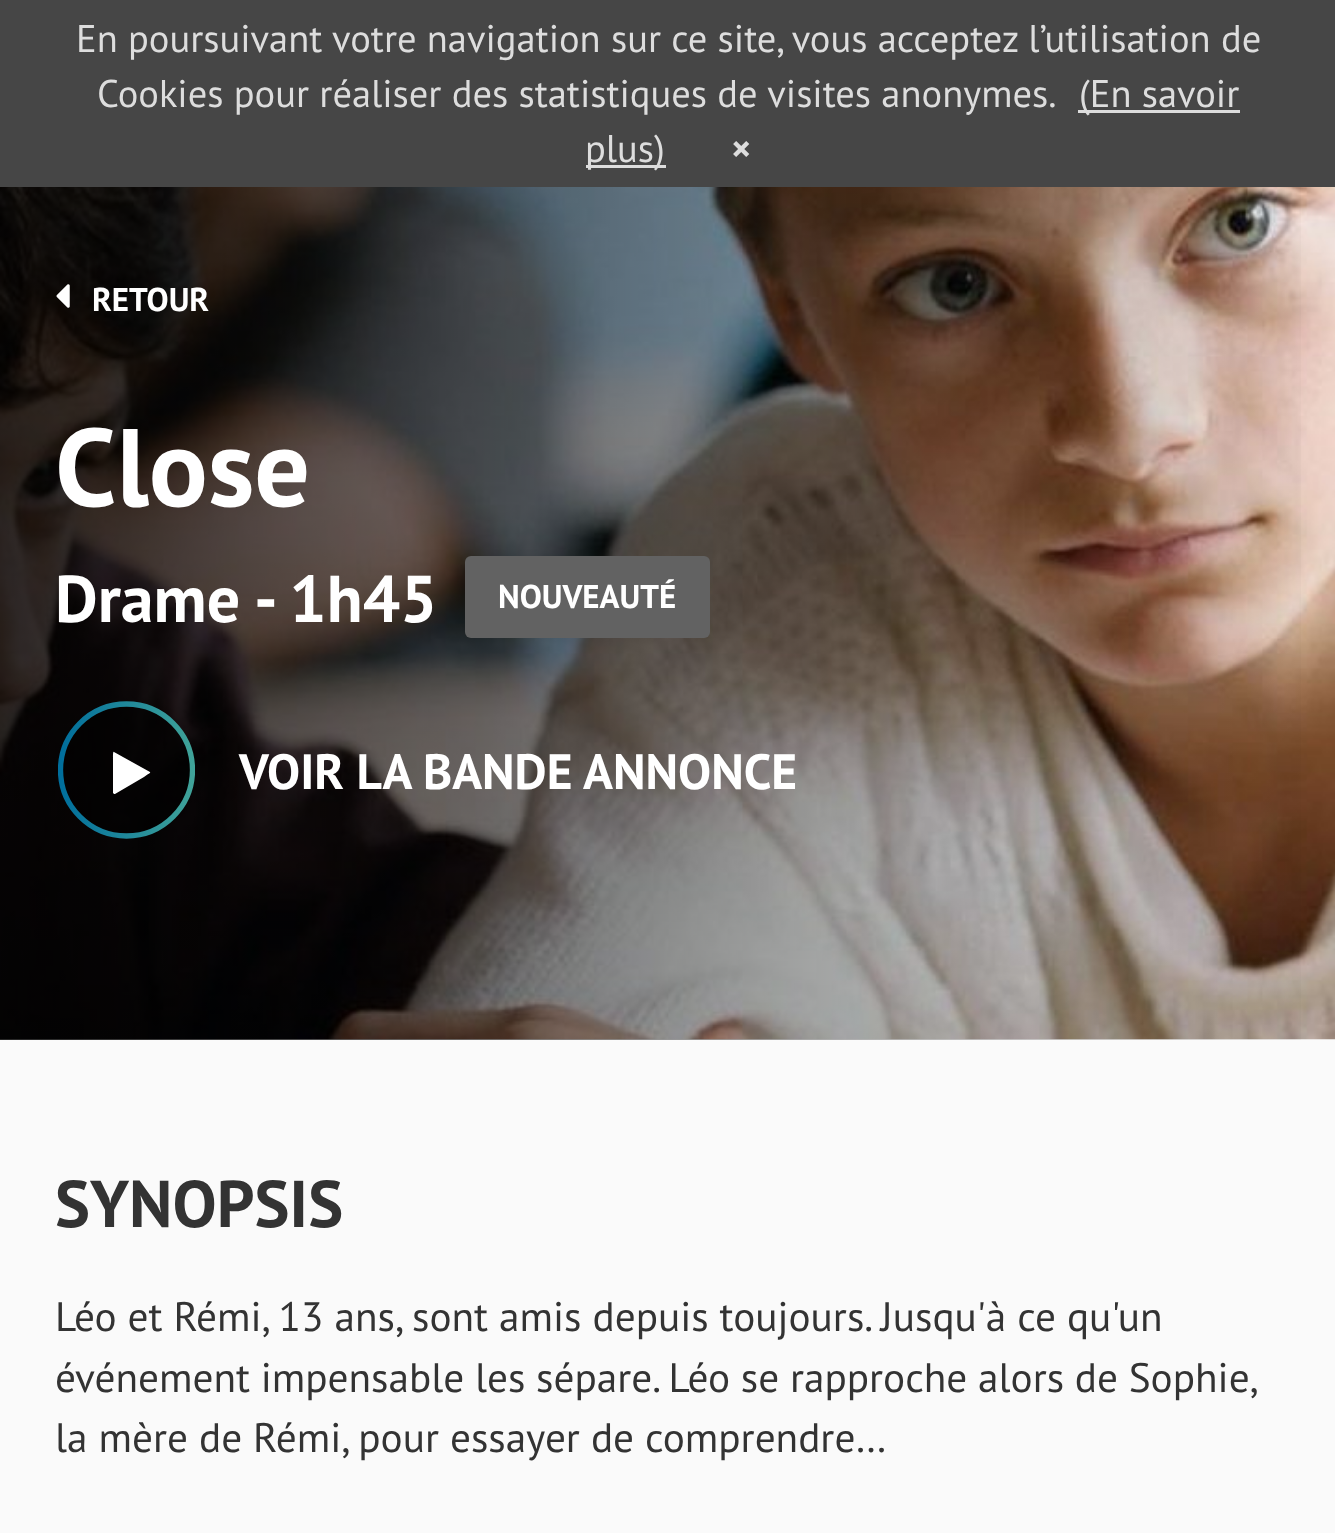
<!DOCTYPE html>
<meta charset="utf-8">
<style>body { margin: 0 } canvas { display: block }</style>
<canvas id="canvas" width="1335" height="1533"></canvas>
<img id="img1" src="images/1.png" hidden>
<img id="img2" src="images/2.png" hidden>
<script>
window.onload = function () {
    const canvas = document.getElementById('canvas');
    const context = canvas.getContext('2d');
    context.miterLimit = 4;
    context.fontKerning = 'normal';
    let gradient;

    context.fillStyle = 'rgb(250, 250, 250)';
    context.fillRect(0, 0, 1335, 1533);
    context.fillStyle = 'rgb(70, 70, 70)';
    context.fillRect(0, 0, 1335, 187);
    context.fillStyle = 'rgb(221, 221, 221)';
    context.fillRect(1078, 110, 162, 3);
    context.fillRect(586, 165, 80, 3);
    context.drawImage(document.getElementById('img1'), 0, 187, 1335, 853);
    gradient = context.createLinearGradient(0, 520, 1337, 520);
    gradient.addColorStop(0, 'rgba(0, 0, 0, 0.8)');
    gradient.addColorStop(1, 'rgba(0, 0, 0, 0)');
    context.fillStyle = gradient;
    context.fillRect(0, 187, 1301, 853);
    context.drawImage(document.getElementById('img2'), 56, 284, 14, 24);
    context.fillStyle = 'rgb(98, 98, 98)';
    context.beginPath();
    context.roundRect(465, 556, 245, 82, 6);
    context.fill();
    context.fillStyle = 'rgba(0, 0, 0, 0.5)';
    context.beginPath();
    context.arc(126.5, 770, 66, 0, 2 * Math.PI);
    context.fill();
    context.save();
    context.beginPath();
    context.rect(58, 701, 137, 138);
    context.clip();
    context.beginPath();
    context.arc(126.5, 770, 66, 0, 2 * Math.PI);
    gradient = context.createLinearGradient(60, 770, 193, 770);
    gradient.addColorStop(0, 'rgb(0, 110, 156)');
    gradient.addColorStop(1, 'rgb(64, 163, 153)');
    context.strokeStyle = gradient;
    context.lineWidth = 5.3;
    context.stroke();
    context.restore();
    context.fillStyle = 'rgb(255, 255, 255)';
    context.beginPath();
    context.moveTo(115, 794);
    context.bezierCurveTo(114, 794, 114, 794, 113, 793);
    context.lineTo(113, 759);
    context.bezierCurveTo(113, 754, 113, 751, 114, 752);
    context.lineTo(150, 772);
    context.bezierCurveTo(151, 773, 148, 774, 144, 777);
    context.closePath();
    context.fill('evenodd');
    context.font = '38.5px PT Sans';
    context.fillStyle = 'rgb(221, 221, 221)';
    context.fillText('En poursuivant votre navigation sur ce site, vous acceptez l’utilisation de', 76, 52);
    context.fillText('Cookies pour réaliser des statistiques de visites anonymes.', 97, 107);
    context.fillText('(En savoir', 1079, 107);
    context.fillText('plus)', 585, 162);
    context.font = 'bold 38.5px PT Sans';
    context.fillText('×', 731, 162);
    context.font = 'bold 33px PT Sans';
    context.fillStyle = 'rgb(255, 255, 255)';
    context.fillText('RETOUR', 92, 311);
    context.font = 'bold 110px PT Sans';
    context.fillText('Close', 55, 506);
    context.font = 'bold 66px PT Sans';
    context.fillText('Drame - 1h45', 55, 622);
    context.font = 'bold 33px PT Sans';
    context.fillText('NOUVEAUTÉ', 498, 608);
    context.font = 'bold 49.5px PT Sans';
    context.fillText('VOIR LA BANDE ANNONCE', 239, 789);
    context.font = 'bold 66px PT Sans';
    context.fillStyle = 'rgb(51, 51, 51)';
    context.fillText('SYNOPSIS', 55, 1227);
    context.font = '41.25px PT Sans';
    context.fillText('Léo et Rémi, 13 ans, sont amis depuis toujours. Jusqu\'à ce qu\'un', 55, 1331);
    context.wordSpacing = '-0.25px';
    context.fillText('événement impensable les sépare. Léo se rapproche alors de Sophie,', 55, 1392);
    context.wordSpacing = '0px';
    context.fillText('la mère de Rémi, pour essayer de comprendre…', 55, 1452);
};
</script>
